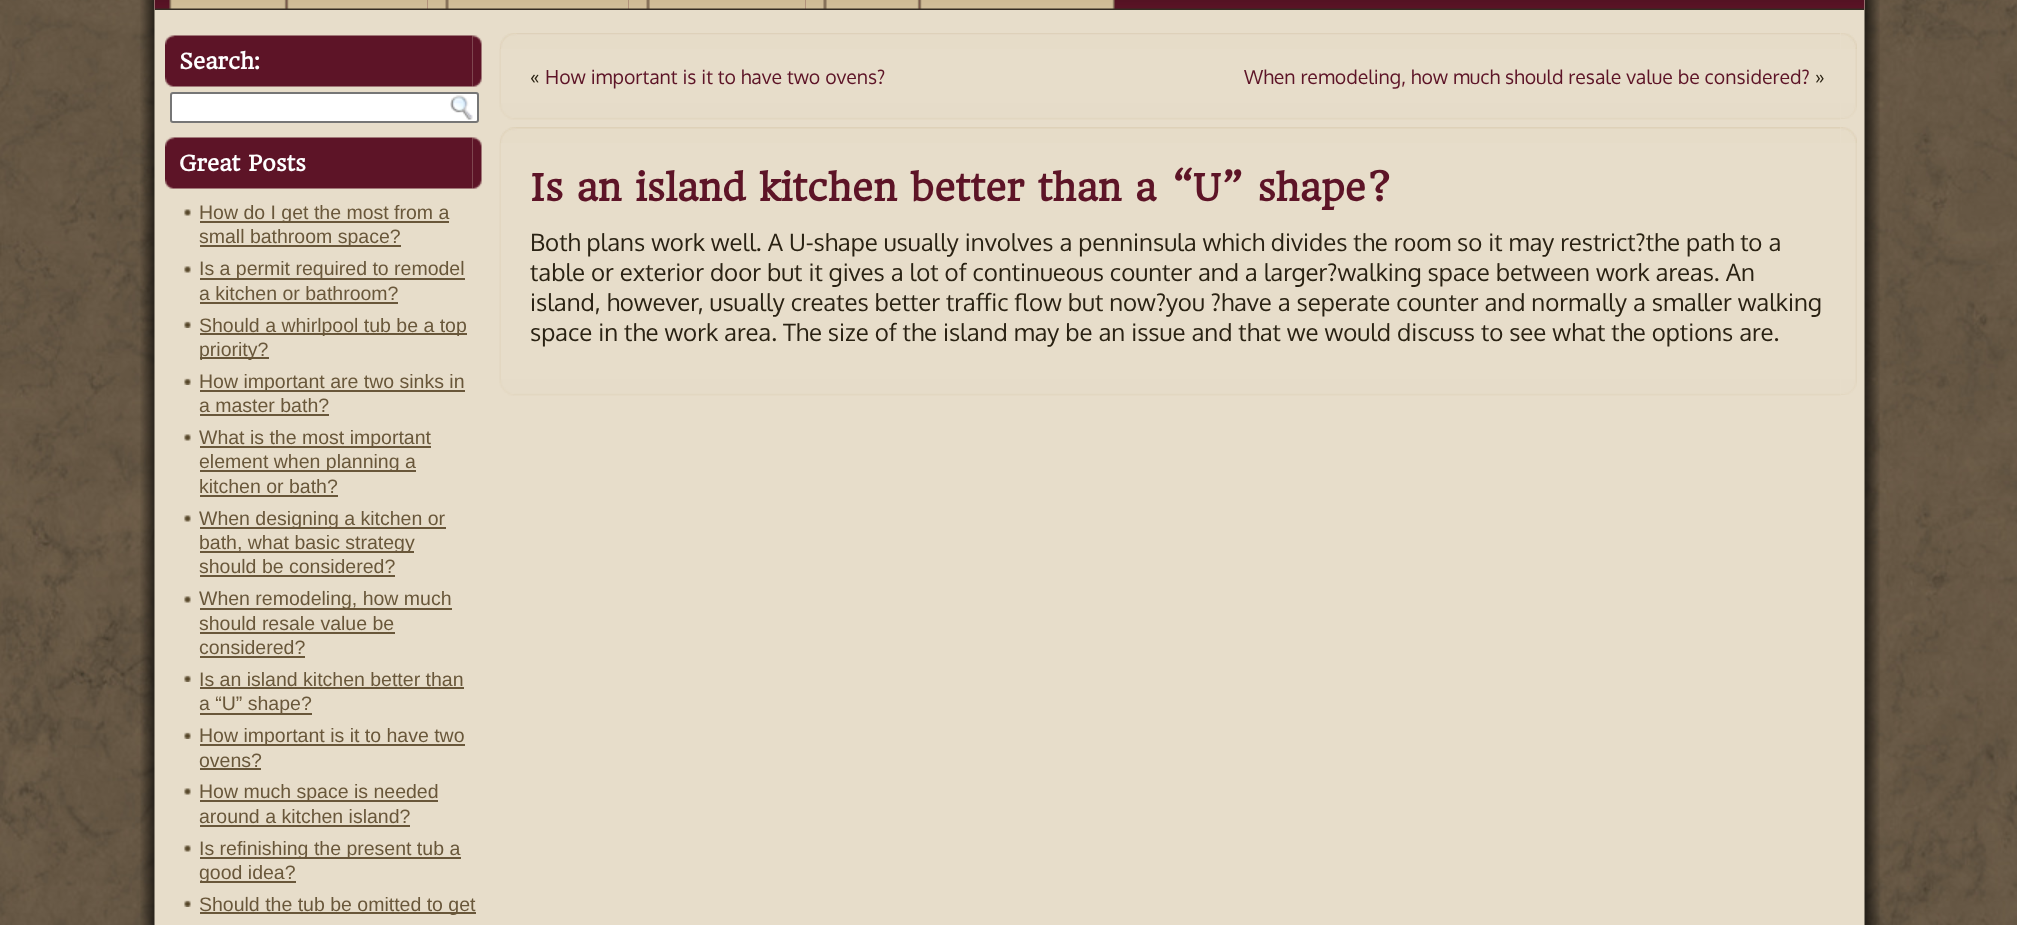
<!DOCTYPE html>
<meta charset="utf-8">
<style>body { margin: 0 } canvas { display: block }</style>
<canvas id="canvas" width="2017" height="925"></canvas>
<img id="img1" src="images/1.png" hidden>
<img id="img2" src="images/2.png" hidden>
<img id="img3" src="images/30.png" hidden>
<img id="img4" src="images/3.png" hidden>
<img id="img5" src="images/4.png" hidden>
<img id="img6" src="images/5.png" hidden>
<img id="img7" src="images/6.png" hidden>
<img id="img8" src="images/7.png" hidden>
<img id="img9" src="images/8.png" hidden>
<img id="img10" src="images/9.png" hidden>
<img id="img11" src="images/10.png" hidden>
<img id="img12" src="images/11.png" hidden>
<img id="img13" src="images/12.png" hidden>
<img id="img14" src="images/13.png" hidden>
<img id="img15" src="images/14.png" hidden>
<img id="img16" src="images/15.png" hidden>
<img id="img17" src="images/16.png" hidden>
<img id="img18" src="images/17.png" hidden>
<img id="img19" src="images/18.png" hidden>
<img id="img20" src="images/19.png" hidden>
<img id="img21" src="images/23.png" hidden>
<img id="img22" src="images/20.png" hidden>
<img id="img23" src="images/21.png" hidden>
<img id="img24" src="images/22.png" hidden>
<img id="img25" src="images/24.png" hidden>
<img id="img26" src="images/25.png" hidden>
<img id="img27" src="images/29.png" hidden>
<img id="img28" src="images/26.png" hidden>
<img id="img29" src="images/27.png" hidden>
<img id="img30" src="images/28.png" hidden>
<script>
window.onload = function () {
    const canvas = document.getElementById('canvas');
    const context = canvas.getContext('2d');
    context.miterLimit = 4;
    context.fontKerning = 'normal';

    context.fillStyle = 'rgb(255, 255, 255)';
    context.fillRect(0, 0, 2017, 925);
    context.drawImage(document.getElementById('img1'), 0, 0, 2017, 925);
    context.drawImage(document.getElementById('img2'), 140, 0, 1678, 925);
    context.drawImage(document.getElementById('img3'), 1818, 0, 62, 925);
    context.fillStyle = 'rgb(215, 202, 183)';
    context.fillRect(154, 0, 1711, 10);
    context.drawImage(document.getElementById('img4'), 154, 0, 1711, 10);
    context.drawImage(document.getElementById('img5'), 169, 0, 98, 9);
    context.drawImage(document.getElementById('img6'), 267, 0, 20, 9);
    context.drawImage(document.getElementById('img7'), 286, 0, 142, 9);
    context.drawImage(document.getElementById('img8'), 427, 0, 20, 9);
    context.drawImage(document.getElementById('img9'), 447, 0, 182, 9);
    context.drawImage(document.getElementById('img8'), 628, 0, 20, 9);
    context.drawImage(document.getElementById('img10'), 648, 0, 158, 9);
    context.drawImage(document.getElementById('img11'), 805, 0, 20, 9);
    context.drawImage(document.getElementById('img12'), 825, 0, 75, 9);
    context.drawImage(document.getElementById('img6'), 900, 0, 20, 9);
    context.drawImage(document.getElementById('img13'), 919, 0, 176, 9);
    context.drawImage(document.getElementById('img6'), 1095, 0, 20, 9);
    context.drawImage(document.getElementById('img14'), 165, 35, 308, 52);
    context.drawImage(document.getElementById('img15'), 472, 35, 10, 52);
    context.fillStyle = 'rgb(255, 255, 255)';
    context.beginPath();
    context.roundRect(171, 93, 307, 29, 2);
    context.fill();
    context.strokeStyle = 'rgb(118, 118, 118)';
    context.lineWidth = 2;
    context.stroke();
    context.drawImage(document.getElementById('img16'), 450, 95, 23, 25);
    context.drawImage(document.getElementById('img14'), 165, 137, 308, 52);
    context.drawImage(document.getElementById('img15'), 472, 137, 10, 52);
    context.drawImage(document.getElementById('img17'), 184, 209, 7, 7);
    context.fillStyle = 'rgb(105, 87, 58)';
    context.fillRect(200, 221, 249, 2);
    context.fillRect(200, 245, 201, 2);
    context.drawImage(document.getElementById('img17'), 184, 266, 7, 7);
    context.fillRect(200, 278, 265, 2);
    context.fillRect(200, 302, 198, 2);
    context.drawImage(document.getElementById('img18'), 184, 321, 7, 7);
    context.fillRect(200, 333, 267, 2);
    context.fillRect(200, 357, 69, 2);
    context.drawImage(document.getElementById('img18'), 184, 378, 7, 7);
    context.fillRect(200, 390, 265, 2);
    context.fillRect(200, 414, 129, 2);
    context.drawImage(document.getElementById('img17'), 184, 434, 7, 7);
    context.fillRect(200, 446, 231, 2);
    context.fillRect(200, 470, 216, 2);
    context.fillRect(200, 495, 138, 2);
    context.drawImage(document.getElementById('img17'), 184, 515, 7, 7);
    context.fillRect(200, 527, 246, 2);
    context.fillRect(200, 551, 214, 2);
    context.fillRect(200, 575, 195, 2);
    context.drawImage(document.getElementById('img17'), 184, 596, 7, 7);
    context.fillRect(200, 608, 252, 2);
    context.fillRect(200, 632, 195, 2);
    context.fillRect(200, 656, 105, 2);
    context.drawImage(document.getElementById('img18'), 184, 675, 7, 7);
    context.fillRect(200, 687, 264, 2);
    context.fillRect(200, 713, 112, 2);
    context.drawImage(document.getElementById('img18'), 184, 732, 7, 7);
    context.fillRect(200, 744, 265, 2);
    context.fillRect(200, 768, 61, 2);
    context.drawImage(document.getElementById('img17'), 184, 788, 7, 7);
    context.fillRect(200, 800, 238, 2);
    context.fillRect(200, 825, 210, 2);
    context.drawImage(document.getElementById('img17'), 184, 845, 7, 7);
    context.fillRect(200, 857, 261, 2);
    context.fillRect(200, 881, 96, 2);
    context.drawImage(document.getElementById('img18'), 184, 900, 7, 7);
    context.fillRect(200, 912, 276, 2);
    context.drawImage(document.getElementById('img19'), 499, 33, 1341, 87);
    context.drawImage(document.getElementById('img20'), 500, 33, 1340, 16);
    context.drawImage(document.getElementById('img21'), 1855, 49, 2, 54);
    context.drawImage(document.getElementById('img22'), 1840, 33, 17, 86);
    context.drawImage(document.getElementById('img23'), 1841, 33, 16, 16);
    context.drawImage(document.getElementById('img24'), 499, 49, 2, 54);
    context.drawImage(document.getElementById('img25'), 499, 127, 1342, 269);
    context.drawImage(document.getElementById('img26'), 500, 127, 1341, 16);
    context.drawImage(document.getElementById('img27'), 1855, 143, 2, 236);
    context.drawImage(document.getElementById('img28'), 1841, 127, 16, 268);
    context.drawImage(document.getElementById('img29'), 1841, 127, 16, 16);
    context.drawImage(document.getElementById('img30'), 499, 143, 2, 236);
    context.font = 'bold 21px HeadlandOne';
    context.fillStyle = 'rgb(255, 255, 255)';
    context.fillText('Search:', 179, 69);
    context.fillText('Great Posts', 179, 171);
    context.font = '19.5px Liberation Sans';
    context.fillStyle = 'rgb(105, 87, 58)';
    context.fillText('How do I get the most from a', 199, 219);
    context.fillText('small bathroom space?', 199, 243);
    context.fillText('Is a permit required to remodel', 199, 275);
    context.fillText('a kitchen or bathroom?', 199, 300);
    context.fillText('Should a whirlpool tub be a top', 199, 332);
    context.fillText('priority?', 199, 356);
    context.fillText('How important are two sinks in', 199, 388);
    context.fillText('a master bath?', 199, 412);
    context.fillText('What is the most important', 199, 444);
    context.fillText('element when planning a', 199, 468);
    context.fillText('kitchen or bath?', 199, 493);
    context.fillText('When designing a kitchen or', 199, 525);
    context.fillText('bath, what basic strategy', 199, 549);
    context.fillText('should be considered?', 199, 573);
    context.fillText('When remodeling, how much', 199, 605);
    context.fillText('should resale value be', 199, 630);
    context.fillText('considered?', 199, 654);
    context.fillText('Is an island kitchen better than', 199, 686);
    context.fillText('a “U” shape?', 199, 710);
    context.fillText('How important is it to have two', 199, 742);
    context.fillText('ovens?', 199, 767);
    context.fillText('How much space is needed', 199, 798);
    context.fillText('around a kitchen island?', 199, 823);
    context.fillText('Is refinishing the present tub a', 199, 855);
    context.fillText('good idea?', 199, 879);
    context.fillText('Should the tub be omitted to get', 199, 911);
    context.font = '19.5px Oxygen';
    context.fillStyle = 'rgb(42, 34, 19)';
    context.fillText('«', 530, 84);
    context.fillStyle = 'rgb(93, 20, 39)';
    context.fillText('How important is it to have two ovens?', 545, 84);
    context.fillText('When remodeling, how much should resale value be considered?', 1244, 84);
    context.fillStyle = 'rgb(42, 34, 19)';
    context.fillText('»', 1815, 84);
    context.font = 'bold 36px HeadlandOne';
    context.fillStyle = 'rgb(93, 20, 39)';
    context.fillText('Is an island kitchen better than a “U” shape?', 530, 201);
    context.font = '24px Oxygen';
    context.fillStyle = 'rgb(42, 34, 19)';
    context.fillText('Both plans work well. A U-shape usually involves a penninsula which divides the room so it may restrict?the path to a', 530, 251);
    context.fillText('table or exterior door but it gives a lot of continueous counter and a larger?walking space between work areas. An', 530, 281);
    context.fillText('island, however, usually creates better traffic flow but now?you ?have a seperate counter and normally a smaller walking', 530, 311);
    context.fillText('space in the work area. The size of the island may be an issue and that we would discuss to see what the options are.', 530, 341);
};
</script>
